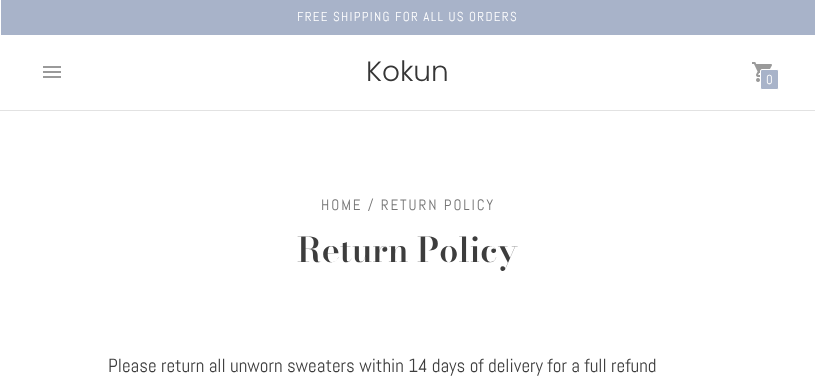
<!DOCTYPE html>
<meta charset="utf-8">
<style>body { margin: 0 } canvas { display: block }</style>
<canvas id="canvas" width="815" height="380"></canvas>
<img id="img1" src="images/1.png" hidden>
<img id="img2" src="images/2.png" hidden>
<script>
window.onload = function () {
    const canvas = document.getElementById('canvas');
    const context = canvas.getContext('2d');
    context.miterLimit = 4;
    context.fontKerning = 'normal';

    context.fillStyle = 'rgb(255, 255, 255)';
    context.fillRect(0, 0, 815, 380);
    context.fillStyle = 'rgb(168, 179, 201)';
    context.fillRect(1, 0, 814, 35);
    context.fillStyle = 'rgb(226, 226, 226)';
    context.fillRect(0, 110, 815, 1);
    context.drawImage(document.getElementById('img1'), 43, 66, 18, 12);
    context.drawImage(document.getElementById('img2'), 752, 62, 20, 20);
    context.fillStyle = 'rgb(168, 179, 201)';
    context.beginPath();
    context.roundRect(760.5, 69.5, 18, 20, 1.5);
    context.fill();
    context.strokeStyle = 'rgb(255, 255, 255)';
    context.stroke();
    context.letterSpacing = '1.3px';
    context.font = '13px Abel';
    context.fillStyle = 'rgb(255, 255, 255)';
    context.fillText('FREE SHIPPING FOR ALL US ORDERS', 297, 21);
    context.letterSpacing = '0px';
    context.font = '300 28px Poppins';
    context.fillStyle = 'rgb(54, 54, 54)';
    context.fillText('Kokun', 366, 81);
    context.font = '13px Abel';
    context.fillStyle = 'rgb(255, 255, 255)';
    context.fillText('0', 766, 84);
    context.letterSpacing = '1.9px';
    context.font = '15px Abel';
    context.fillStyle = 'rgb(117, 117, 117)';
    context.fillText('HOME / RETURN POLICY', 321, 210);
    context.letterSpacing = '0px';
    context.font = '600 34px Bodoni Moda';
    context.fillStyle = 'rgb(61, 61, 61)';
    context.fillText('Return Policy', 297, 262);
    context.font = '19px Abel';
    context.fillText('Please return all unworn sweaters within 14 days of delivery for a full refund', 108, 372);
};
</script>
